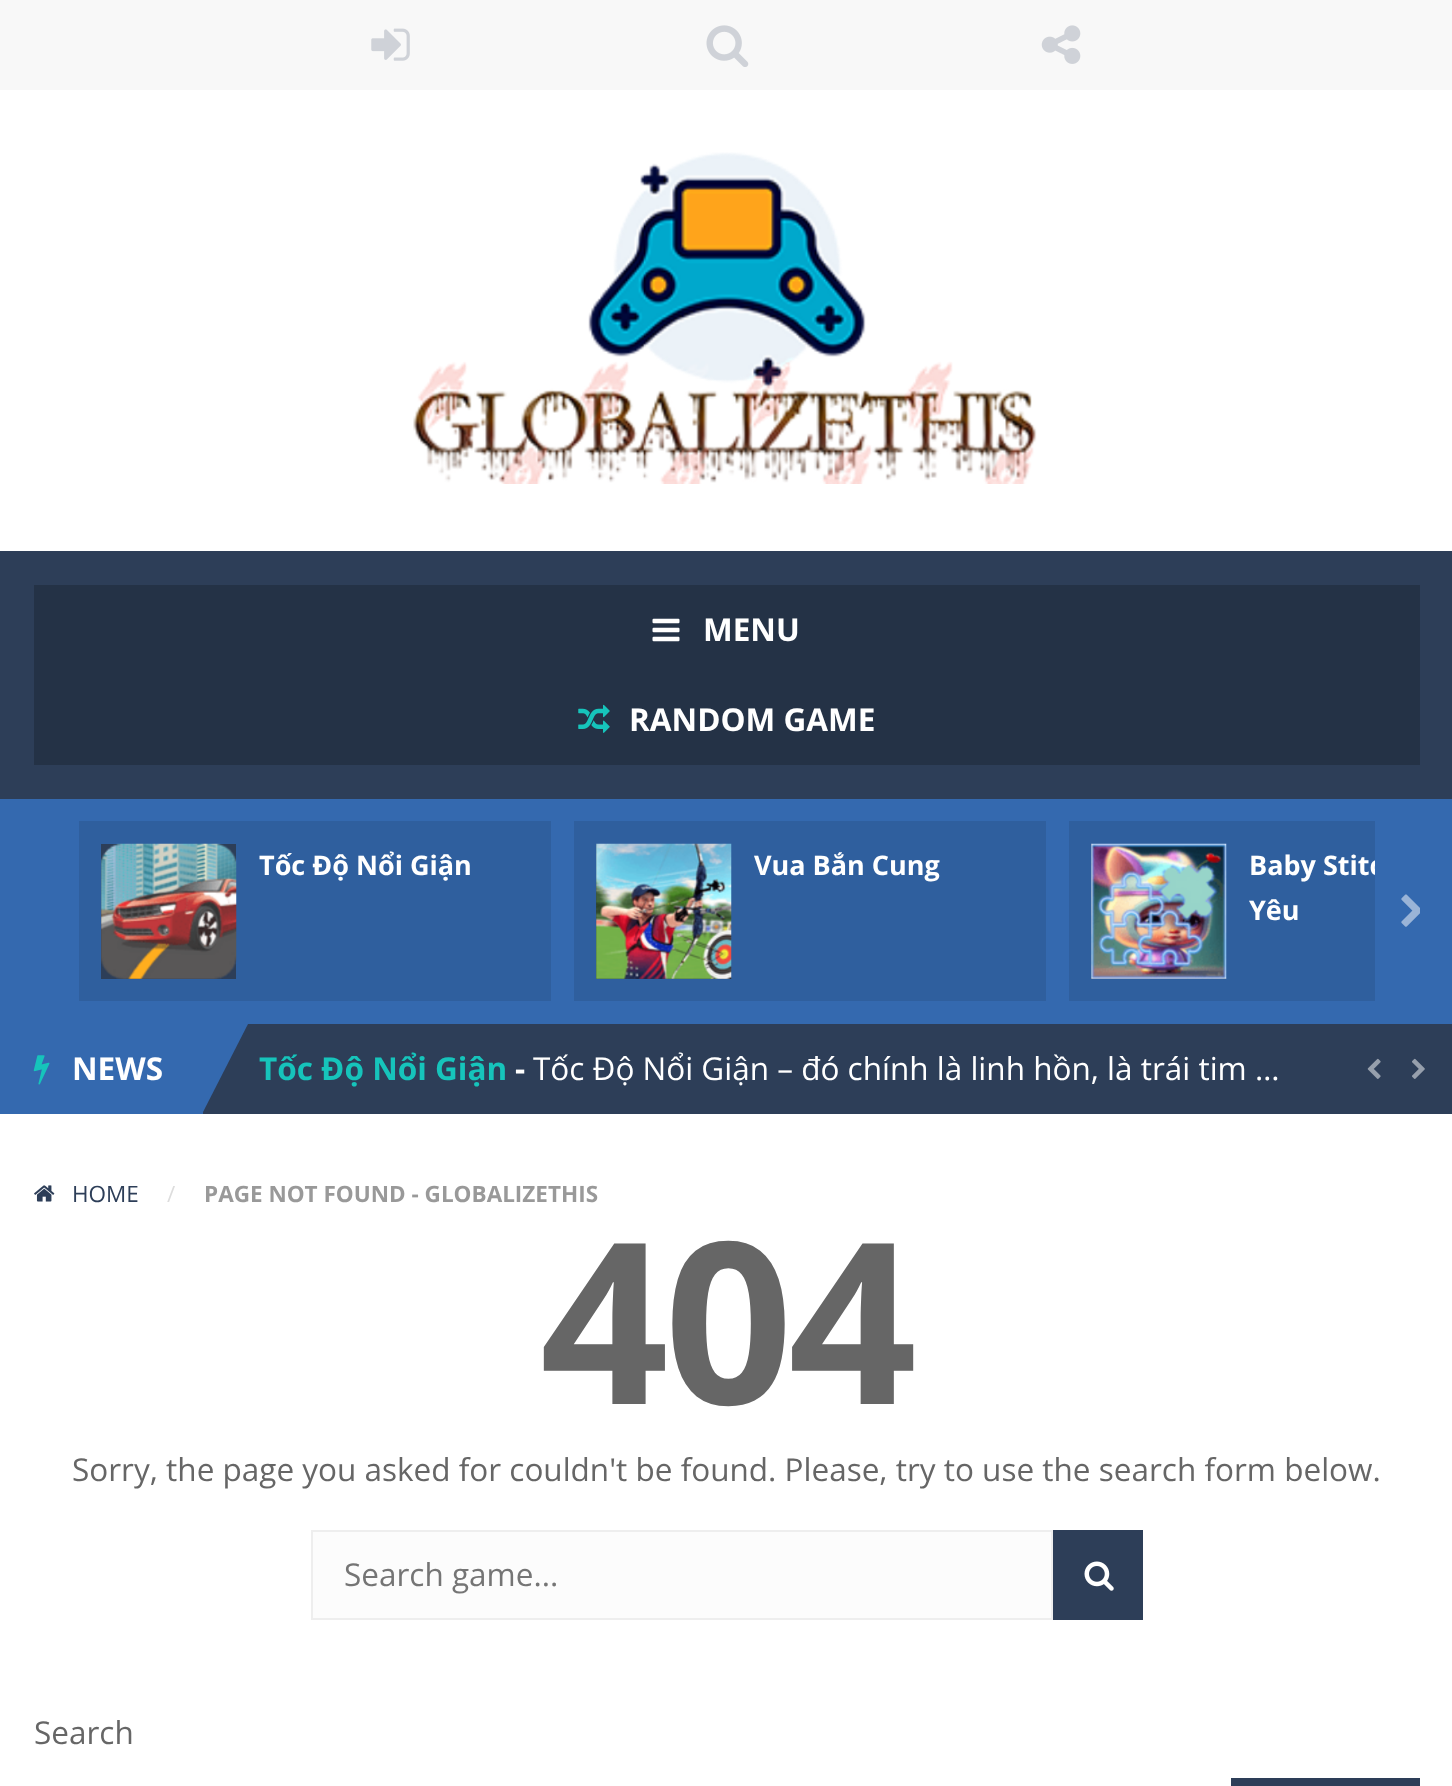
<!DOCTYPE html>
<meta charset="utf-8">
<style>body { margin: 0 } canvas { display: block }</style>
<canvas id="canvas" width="1452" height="1786"></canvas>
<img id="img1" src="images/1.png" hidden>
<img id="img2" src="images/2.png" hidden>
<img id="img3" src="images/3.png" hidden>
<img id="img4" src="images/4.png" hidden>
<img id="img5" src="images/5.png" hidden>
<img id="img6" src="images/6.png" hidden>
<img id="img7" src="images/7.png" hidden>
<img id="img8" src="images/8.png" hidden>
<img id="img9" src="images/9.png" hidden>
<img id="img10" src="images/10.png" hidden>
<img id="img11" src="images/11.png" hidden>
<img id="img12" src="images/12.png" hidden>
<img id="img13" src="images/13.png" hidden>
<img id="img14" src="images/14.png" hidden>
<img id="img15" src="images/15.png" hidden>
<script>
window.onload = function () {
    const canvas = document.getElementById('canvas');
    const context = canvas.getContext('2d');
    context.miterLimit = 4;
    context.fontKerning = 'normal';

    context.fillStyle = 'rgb(248, 248, 248)';
    context.fillRect(0, 0, 1452, 1786);
    context.drawImage(document.getElementById('img1'), 371, 28, 39, 33);
    context.drawImage(document.getElementById('img2'), 706, 25, 43, 42);
    context.drawImage(document.getElementById('img3'), 1041, 25, 40, 39);
    context.fillStyle = 'rgb(255, 255, 255)';
    context.fillRect(0, 90, 1452, 461);
    context.drawImage(document.getElementById('img4'), 413, 152, 624, 332);
    context.fillStyle = 'rgb(45, 62, 88)';
    context.fillRect(0, 551, 1452, 248);
    context.fillStyle = 'rgb(36, 50, 70)';
    context.fillRect(34, 585, 1386, 180);
    context.drawImage(document.getElementById('img5'), 652, 618, 28, 24);
    context.drawImage(document.getElementById('img6'), 578, 704, 32, 29);
    context.fillStyle = 'rgb(52, 105, 175)';
    context.fillRect(0, 799, 1452, 225);
    context.fillStyle = 'rgb(47, 95, 158)';
    context.fillRect(79, 821, 472, 180);
    context.fillStyle = 'rgb(45, 62, 88)';
    context.fillRect(101, 844, 135, 135);
    context.drawImage(document.getElementById('img7'), 101, 843, 136, 136);
    context.fillStyle = 'rgb(47, 95, 158)';
    context.fillRect(574, 821, 472, 180);
    context.fillStyle = 'rgb(45, 62, 88)';
    context.fillRect(596, 844, 135, 135);
    context.drawImage(document.getElementById('img8'), 596, 843, 136, 136);
    context.fillStyle = 'rgb(47, 95, 158)';
    context.fillRect(1069, 821, 306, 180);
    context.fillStyle = 'rgb(45, 62, 88)';
    context.fillRect(1091, 844, 135, 135);
    context.drawImage(document.getElementById('img9'), 1091, 843, 136, 136);
    context.drawImage(document.getElementById('img10'), 1401, 894, 19, 33);
    context.fillRect(203, 1024, 1249, 90);
    context.fillStyle = 'rgb(52, 105, 175)';
    context.fillRect(0, 1024, 203, 90);
    context.drawImage(document.getElementById('img11'), 33, 1055, 17, 30);
    context.beginPath();
    context.moveTo(202, 1024);
    context.lineTo(248, 1024);
    context.lineTo(202, 1114);
    context.closePath();
    context.fill();
    context.drawImage(document.getElementById('img12'), 1367, 1058, 14, 21);
    context.drawImage(document.getElementById('img13'), 1412, 1058, 13, 21);
    context.fillStyle = 'rgb(255, 255, 255)';
    context.fillRect(0, 1114, 1452, 672);
    context.drawImage(document.getElementById('img14'), 34, 1185, 21, 17);
    context.fillStyle = 'rgb(252, 252, 252)';
    context.beginPath();
    context.rect(312, 1531, 740, 88);
    context.fill();
    context.strokeStyle = 'rgb(238, 238, 238)';
    context.lineWidth = 2;
    context.stroke();
    context.fillStyle = 'rgb(45, 62, 88)';
    context.fillRect(1053, 1530, 90, 90);
    context.drawImage(document.getElementById('img15'), 1084, 1561, 30, 30);
    context.fillRect(1231, 1778, 189, 8);
    context.font = 'bold 31.5px Open Sans';
    context.fillStyle = 'rgb(255, 255, 255)';
    context.fillText('MENU', 703, 641);
    context.fillText('RANDOM GAME', 629, 731);
    context.font = 'bold 27px Open Sans';
    context.fillText('Tốc Độ Nổi Giận', 259, 875);
    context.fillText('Vua Bắn Cung', 754, 875);
    context.save();
    context.beginPath();
    context.rect(79, 821, 1296, 180);
    context.clip();
    context.fillText('Baby Stitc', 1249, 875);
    context.restore();
    context.fillText('Yêu', 1249, 920);
    context.font = 'bold 31.5px Open Sans';
    context.fillText('NEWS', 72, 1080);
    context.fillStyle = 'rgb(22, 196, 187)';
    context.fillText('Tốc Độ Nổi Giận', 259, 1080);
    context.fillStyle = 'rgb(255, 255, 255)';
    context.fillText('-', 515, 1080);
    context.font = '31.5px Open Sans';
    context.fillText('Tốc Độ Nổi Giận – đó chính là linh hồn, là trái tim …', 533, 1080);
    context.font = '22.5px Open Sans';
    context.fillStyle = 'rgb(45, 62, 88)';
    context.fillText('HOME', 72, 1202);
    context.fillStyle = 'rgb(221, 221, 221)';
    context.fillText('/', 167, 1202);
    context.font = 'bold 22.5px Open Sans';
    context.fillStyle = 'rgb(153, 153, 153)';
    context.fillText('PAGE NOT FOUND - GLOBALIZETHIS', 204, 1202);
    context.letterSpacing = '-4.5px';
    context.font = 'bold 225px Open Sans';
    context.fillStyle = 'rgb(102, 102, 102)';
    context.fillText('404', 540, 1404);
    context.letterSpacing = '0px';
    context.font = '31.5px Open Sans';
    context.fillText('Sorry, the page you asked for couldn\'t be found. Please, try to use the search form below.', 72, 1481);
    context.fillStyle = 'rgb(117, 117, 117)';
    context.fillText('Search game...', 344, 1586);
    context.fillStyle = 'rgb(102, 102, 102)';
    context.fillText('Search', 34, 1744);
};
</script>
